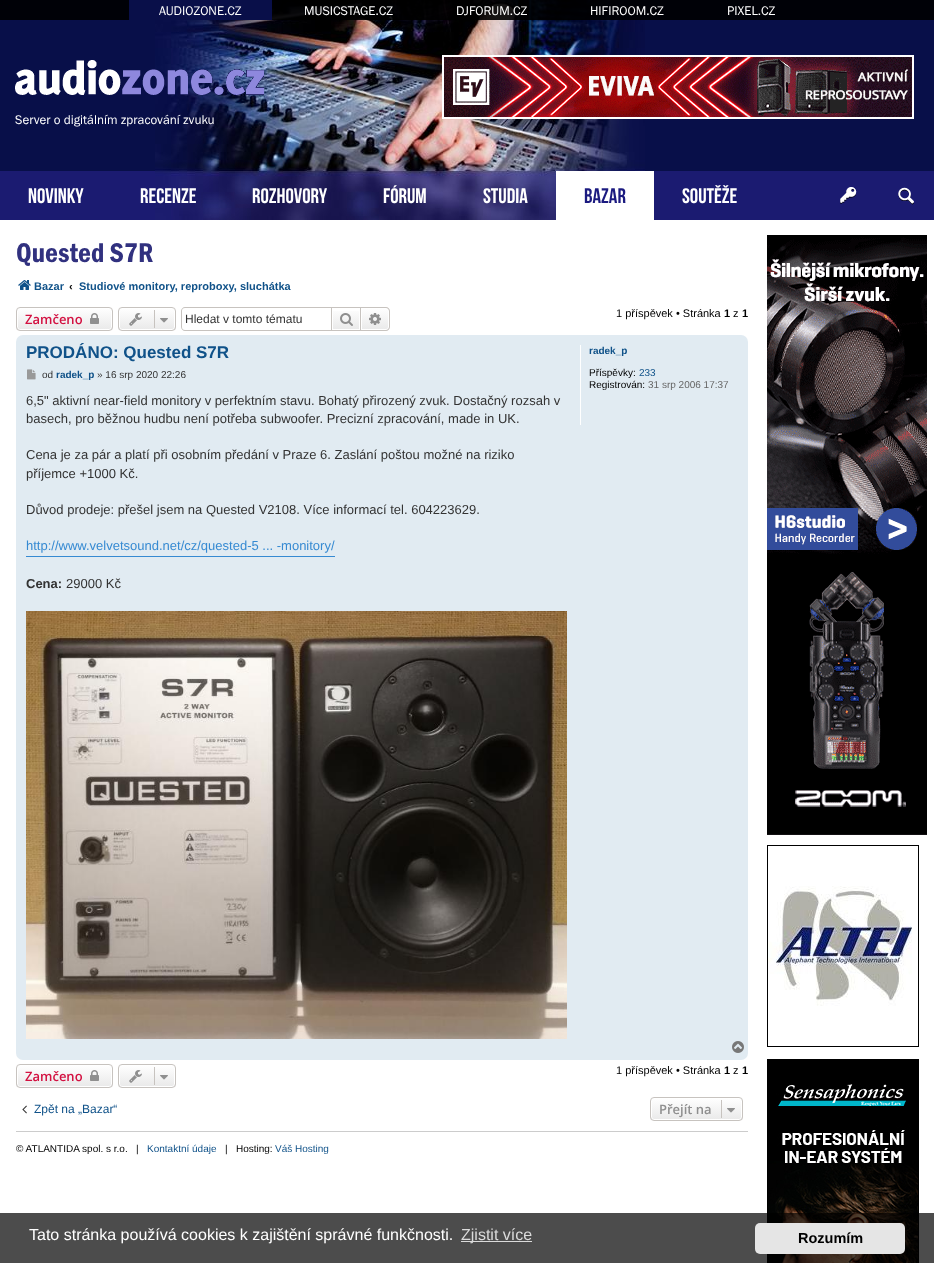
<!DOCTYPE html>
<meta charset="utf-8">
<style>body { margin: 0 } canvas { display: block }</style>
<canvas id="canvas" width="934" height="1263"></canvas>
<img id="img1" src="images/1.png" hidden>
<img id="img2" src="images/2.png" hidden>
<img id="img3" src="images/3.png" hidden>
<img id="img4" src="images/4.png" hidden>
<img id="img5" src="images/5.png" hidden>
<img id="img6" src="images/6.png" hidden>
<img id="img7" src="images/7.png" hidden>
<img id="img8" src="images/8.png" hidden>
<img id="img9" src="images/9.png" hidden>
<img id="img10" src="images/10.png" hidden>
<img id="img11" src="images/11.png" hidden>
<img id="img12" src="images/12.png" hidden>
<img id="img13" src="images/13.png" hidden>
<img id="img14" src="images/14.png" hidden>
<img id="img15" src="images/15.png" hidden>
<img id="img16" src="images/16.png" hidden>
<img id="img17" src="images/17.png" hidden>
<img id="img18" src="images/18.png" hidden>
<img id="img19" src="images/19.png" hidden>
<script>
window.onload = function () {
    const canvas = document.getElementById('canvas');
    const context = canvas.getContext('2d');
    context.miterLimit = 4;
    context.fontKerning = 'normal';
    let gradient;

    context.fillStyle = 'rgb(255, 255, 255)';
    context.fillRect(0, 0, 934, 1263);
    context.drawImage(document.getElementById('img1'), 0, 0, 934, 220);
    context.drawImage(document.getElementById('img2'), 155, 0, 490, 220);
    context.fillStyle = 'rgba(0, 0, 0, 0.9)';
    context.fillRect(0, 0, 934, 20);
    context.fillStyle = 'rgb(9, 15, 73)';
    context.fillRect(129, 0, 143, 20);
    context.strokeStyle = 'rgb(255, 255, 255)';
    context.lineWidth = 2;
    context.strokeRect(443, 56, 470, 62);
    context.drawImage(document.getElementById('img3'), 444, 57, 468, 60);
    context.drawImage(document.getElementById('img4'), 15, 60, 249, 35);
    context.fillStyle = 'rgb(255, 255, 255)';
    context.fillRect(556, 171, 98, 49);
    context.drawImage(document.getElementById('img5'), 840, 187, 17, 17);
    context.drawImage(document.getElementById('img6'), 898, 187, 16, 18);
    context.drawImage(document.getElementById('img7'), 18, 280, 13, 10);
    context.save();
    context.beginPath();
    context.roundRect(16, 307, 97, 24, 4);
    context.clip();
    gradient = context.createLinearGradient(65, 308, 65, 330);
    gradient.addColorStop(0, 'rgb(255, 255, 255)');
    gradient.addColorStop(1, 'rgb(233, 233, 233)');
    context.fillStyle = gradient;
    context.fillRect(16, 308, 97, 22);
    context.restore();
    context.beginPath();
    context.roundRect(17.5, 308.5, 94, 21, 2.5);
    context.lineWidth = 1;
    context.stroke();
    context.beginPath();
    context.roundRect(16.5, 307.5, 96, 23, 3.5);
    context.strokeStyle = 'rgb(199, 195, 191)';
    context.stroke();
    context.drawImage(document.getElementById('img8'), 90, 313, 9, 11);
    context.save();
    context.beginPath();
    context.roundRect(118, 307, 58, 24, 4);
    context.clip();
    gradient = context.createLinearGradient(147, 308, 147, 330);
    gradient.addColorStop(0, 'rgb(255, 255, 255)');
    gradient.addColorStop(1, 'rgb(233, 233, 233)');
    context.fillStyle = gradient;
    context.fillRect(118, 308, 58, 22);
    context.restore();
    context.beginPath();
    context.roundRect(119.5, 308.5, 55, 21, 2.5);
    context.strokeStyle = 'rgb(255, 255, 255)';
    context.stroke();
    context.beginPath();
    context.roundRect(118.5, 307.5, 57, 23, 3.5);
    context.strokeStyle = 'rgb(199, 195, 191)';
    context.stroke();
    context.drawImage(document.getElementById('img9'), 129, 313, 13, 13);
    context.fillStyle = 'rgb(199, 195, 191)';
    context.fillRect(154, 310, 1, 18);
    context.drawImage(document.getElementById('img10'), 160, 318, 8, 5);
    context.beginPath();
    context.moveTo(185, 307);
    context.lineTo(331, 307);
    context.lineTo(331, 331);
    context.lineTo(185, 331);
    context.bezierCurveTo(183, 331, 181, 329, 181, 327);
    context.lineTo(181, 311);
    context.bezierCurveTo(181, 309, 183, 307, 185, 307);
    context.closePath();
    context.moveTo(185, 308);
    context.lineTo(331, 308);
    context.lineTo(331, 330);
    context.lineTo(185, 330);
    context.bezierCurveTo(183, 330, 182, 329, 182, 327);
    context.lineTo(182, 311);
    context.bezierCurveTo(182, 309, 183, 308, 185, 308);
    context.closePath();
    context.fill('evenodd');
    gradient = context.createLinearGradient(346, 308, 346, 330);
    gradient.addColorStop(0, 'rgb(255, 255, 255)');
    gradient.addColorStop(1, 'rgb(233, 233, 233)');
    context.fillStyle = gradient;
    context.fillRect(333, 311, 26, 18);
    context.strokeRect(331.5, 307.5, 29, 23);
    context.drawImage(document.getElementById('img11'), 340, 313, 13, 13);
    gradient = context.createLinearGradient(375, 308, 375, 330);
    gradient.addColorStop(0, 'rgb(255, 255, 255)');
    gradient.addColorStop(1, 'rgb(233, 233, 233)');
    context.fillStyle = gradient;
    context.beginPath();
    context.roundRect(361.5, 308.5, 27, 21, [0, 2.5, 2.5, 0]);
    context.fill();
    context.strokeStyle = 'rgb(255, 255, 255)';
    context.stroke();
    context.fillStyle = 'rgb(199, 195, 191)';
    context.beginPath();
    context.moveTo(361, 307);
    context.lineTo(386, 307);
    context.bezierCurveTo(388, 307, 390, 309, 390, 311);
    context.lineTo(390, 327);
    context.bezierCurveTo(390, 329, 388, 331, 386, 331);
    context.lineTo(361, 331);
    context.closePath();
    context.moveTo(361, 308);
    context.lineTo(386, 308);
    context.bezierCurveTo(387.5, 308, 389, 309.5, 389, 311);
    context.lineTo(389, 327);
    context.bezierCurveTo(389, 328.5, 387.5, 330, 386, 330);
    context.lineTo(361, 330);
    context.closePath();
    context.fill('evenodd');
    context.drawImage(document.getElementById('img12'), 369, 313, 12, 12);
    context.fillStyle = 'rgb(225, 235, 242)';
    context.beginPath();
    context.roundRect(16, 335, 732, 725, 7);
    context.fill();
    context.drawImage(document.getElementById('img13'), 27, 369, 9, 11);
    context.fillStyle = 'rgb(54, 138, 210)';
    context.fillRect(26, 556, 309, 1);
    context.drawImage(document.getElementById('img14'), 26, 611, 541, 428);
    context.fillStyle = 'rgb(255, 255, 255)';
    context.fillRect(580, 345, 1, 80);
    context.drawImage(document.getElementById('img15'), 732, 1041, 12, 12);
    context.save();
    context.beginPath();
    context.roundRect(16, 1064, 97, 24, 4);
    context.clip();
    gradient = context.createLinearGradient(65, 1065, 65, 1087);
    gradient.addColorStop(0, 'rgb(255, 255, 255)');
    gradient.addColorStop(1, 'rgb(233, 233, 233)');
    context.fillStyle = gradient;
    context.fillRect(16, 1065, 97, 22);
    context.restore();
    context.beginPath();
    context.roundRect(17.5, 1065.5, 94, 21, 2.5);
    context.stroke();
    context.beginPath();
    context.roundRect(16.5, 1064.5, 96, 23, 3.5);
    context.strokeStyle = 'rgb(199, 195, 191)';
    context.stroke();
    context.drawImage(document.getElementById('img8'), 90, 1070, 9, 11);
    context.save();
    context.beginPath();
    context.roundRect(118, 1064, 58, 24, 4);
    context.clip();
    gradient = context.createLinearGradient(147, 1065, 147, 1087);
    gradient.addColorStop(0, 'rgb(255, 255, 255)');
    gradient.addColorStop(1, 'rgb(233, 233, 233)');
    context.fillStyle = gradient;
    context.fillRect(118, 1065, 58, 22);
    context.restore();
    context.beginPath();
    context.roundRect(119.5, 1065.5, 55, 21, 2.5);
    context.strokeStyle = 'rgb(255, 255, 255)';
    context.stroke();
    context.beginPath();
    context.roundRect(118.5, 1064.5, 57, 23, 3.5);
    context.strokeStyle = 'rgb(199, 195, 191)';
    context.stroke();
    context.drawImage(document.getElementById('img9'), 129, 1070, 13, 13);
    context.fillStyle = 'rgb(199, 195, 191)';
    context.fillRect(154, 1067, 1, 18);
    context.drawImage(document.getElementById('img10'), 160, 1075, 8, 5);
    context.drawImage(document.getElementById('img16'), 22, 1105, 5, 9);
    context.save();
    context.beginPath();
    context.roundRect(650, 1097, 93, 24, 4);
    context.clip();
    gradient = context.createLinearGradient(697, 1098, 697, 1120);
    gradient.addColorStop(0, 'rgb(255, 255, 255)');
    gradient.addColorStop(1, 'rgb(233, 233, 233)');
    context.fillStyle = gradient;
    context.fillRect(650, 1098, 93, 22);
    context.restore();
    context.beginPath();
    context.roundRect(651.5, 1098.5, 90, 21, 2.5);
    context.strokeStyle = 'rgb(255, 255, 255)';
    context.stroke();
    context.beginPath();
    context.roundRect(650.5, 1097.5, 92, 23, 3.5);
    context.strokeStyle = 'rgb(199, 195, 191)';
    context.stroke();
    context.fillRect(721, 1100, 1, 18);
    context.drawImage(document.getElementById('img10'), 727, 1108, 8, 5);
    context.fillStyle = 'rgb(204, 204, 204)';
    context.fillRect(16, 1131, 732, 1);
    context.drawImage(document.getElementById('img17'), 767, 235, 160, 600);
    context.drawImage(document.getElementById('img18'), 768, 886, 144, 120);
    context.strokeStyle = 'rgb(0, 0, 0)';
    context.strokeRect(767.5, 845.5, 151, 201);
    context.strokeRect(767.5, 1059.5, 151, 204);
    context.drawImage(document.getElementById('img19'), 768, 1060, 150, 203);
    context.fillStyle = 'rgba(0, 0, 0, 0.7)';
    context.fillRect(0, 1213, 934, 50);
    context.fillStyle = 'rgb(219, 219, 219)';
    context.fillRect(461, 1241, 71, 1);
    context.fillStyle = 'rgb(229, 229, 229)';
    context.beginPath();
    context.roundRect(755, 1223, 150, 31, 5);
    context.fill();
    context.font = '13px Franklin Gothic';
    context.fillStyle = 'rgb(255, 255, 255)';
    context.fillText('AUDIOZONE.CZ', 159, 15);
    context.fillText('MUSICSTAGE.CZ', 304, 15);
    context.fillText('DJFORUM.CZ', 456, 15);
    context.fillText('HIFIROOM.CZ', 590, 15);
    context.fillText('PIXEL.CZ', 727, 15);
    context.fillText('Server o digitálním zpracování zvuku', 15, 124);
    context.font = '21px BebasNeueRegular';
    context.fillText('NOVINKY', 28, 203);
    context.fillText('RECENZE', 140, 203);
    context.fillText('ROZHOVORY', 252, 203);
    context.fillText('FÓRUM', 383, 203);
    context.fillText('STUDIA', 483, 203);
    context.fillStyle = 'rgb(27, 26, 128)';
    context.fillText('BAZAR', 584, 203);
    context.fillStyle = 'rgb(255, 255, 255)';
    context.fillText('SOUTĚŽE', 682, 203);
    context.font = '600 28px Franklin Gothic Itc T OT';
    context.fillStyle = 'rgb(49, 49, 127)';
    context.fillText('Quested S7R', 16, 262);
    context.font = 'bold 11px Liberation Sans';
    context.fillStyle = 'rgb(16, 82, 137)';
    context.fillText('Bazar', 34, 290);
    context.fillStyle = 'rgb(0, 0, 0)';
    context.fillText('‹', 69, 290);
    context.fillStyle = 'rgb(16, 82, 137)';
    context.fillText('Studiové monitory, reproboxy, sluchátka', 79, 290);
    context.font = '600 13px Open Sans';
    context.fillStyle = 'rgb(211, 17, 65)';
    context.fillText('Zamčeno', 25, 324);
    context.font = '12px Liberation Sans';
    context.fillStyle = 'rgb(51, 51, 51)';
    context.fillText('Hledat v tomto tématu', 185, 323);
    context.font = '11px Liberation Sans';
    context.fillStyle = 'rgb(0, 0, 0)';
    context.fillText('1 příspěvek • Stránka', 616, 317);
    context.font = 'bold 11px Liberation Sans';
    context.fillText('1', 724, 317);
    context.font = '11px Liberation Sans';
    context.fillText('z', 733, 317);
    context.font = 'bold 11px Liberation Sans';
    context.fillText('1', 742, 317);
    context.font = 'bold 17px Liberation Sans';
    context.fillStyle = 'rgb(16, 82, 137)';
    context.fillText('PRODÁNO: Quested S7R', 26, 358);
    context.font = '10px Liberation Sans';
    context.fillStyle = 'rgb(51, 51, 51)';
    context.fillText('od', 42, 378);
    context.font = 'bold 10px Liberation Sans';
    context.fillStyle = 'rgb(16, 82, 137)';
    context.fillText('radek_p', 56, 378);
    context.font = '10px Liberation Sans';
    context.fillStyle = 'rgb(51, 51, 51)';
    context.fillText('» 16 srp 2020 22:26', 97, 378);
    context.font = '13px Liberation Sans';
    context.fillText('6,5" aktivní near-field monitory v perfektním stavu. Bohatý přirozený zvuk. Dostačný rozsah v', 26, 405);
    context.fillText('basech, pro běžnou hudbu není potřeba subwoofer. Precizní zpracování, made in UK.', 26, 423);
    context.fillText('Cena je za pár a platí při osobním předání v Praze 6. Zaslání poštou možné na riziko', 26, 459);
    context.fillText('příjemce +1000 Kč.', 26, 478);
    context.fillText('Důvod prodeje: přešel jsem na Quested V2108. Více informací tel. 604223629.', 26, 514);
    context.fillStyle = 'rgb(54, 138, 210)';
    context.fillText('http://www.velvetsound.net/cz/quested-5 ... -monitory/', 26, 550);
    context.font = 'bold 13px Liberation Sans';
    context.fillStyle = 'rgb(51, 51, 51)';
    context.fillText('Cena:', 26, 588);
    context.font = '13px Liberation Sans';
    context.fillText('29000 Kč', 66, 588);
    context.font = 'bold 10px Liberation Sans';
    context.fillStyle = 'rgb(16, 82, 137)';
    context.fillText('radek_p', 589, 354);
    context.font = '10px Liberation Sans';
    context.fillStyle = 'rgb(0, 0, 0)';
    context.fillText('Příspěvky:', 589, 376);
    context.fillStyle = 'rgb(16, 82, 137)';
    context.fillText('233', 639, 376);
    context.fillStyle = 'rgb(0, 0, 0)';
    context.fillText('Registrován:', 589, 388);
    context.fillStyle = 'rgb(102, 102, 102)';
    context.fillText('31 srp 2006 17:37', 648, 388);
    context.font = '600 13px Open Sans';
    context.fillStyle = 'rgb(211, 17, 65)';
    context.fillText('Zamčeno', 25, 1081);
    context.font = '11px Liberation Sans';
    context.fillStyle = 'rgb(0, 0, 0)';
    context.fillText('1 příspěvek • Stránka', 616, 1074);
    context.font = 'bold 11px Liberation Sans';
    context.fillText('1', 724, 1074);
    context.font = '11px Liberation Sans';
    context.fillText('z', 733, 1074);
    context.font = 'bold 11px Liberation Sans';
    context.fillText('1', 742, 1074);
    context.font = '12px Liberation Sans';
    context.fillStyle = 'rgb(16, 82, 137)';
    context.fillText('Zpět na „Bazar“', 34, 1113);
    context.font = '600 13px Open Sans';
    context.fillStyle = 'rgb(143, 143, 143)';
    context.fillText('Přejít na', 659, 1114);
    context.font = '10px Liberation Sans';
    context.fillStyle = 'rgb(0, 0, 0)';
    context.fillText('© ATLANTIDA spol. s r.o.', 16, 1152);
    context.fillText('|', 136, 1152);
    context.fillStyle = 'rgb(16, 82, 137)';
    context.fillText('Kontaktní údaje', 147, 1152);
    context.fillStyle = 'rgb(0, 0, 0)';
    context.fillText('|   Hosting:', 225, 1152);
    context.fillStyle = 'rgb(16, 82, 137)';
    context.fillText('Váš Hosting', 275, 1152);
    context.font = '16px Liberation Sans';
    context.fillStyle = 'rgb(255, 255, 255)';
    context.fillText('Tato stránka používá cookies k zajištění správné funkčnosti.', 29, 1240);
    context.fillStyle = 'rgb(219, 219, 219)';
    context.fillText('Zjistit více', 461, 1240);
    context.font = 'bold 14.5px Liberation Sans';
    context.fillStyle = 'rgb(0, 0, 0)';
    context.fillText('Rozumím', 798, 1243);
};
</script>
